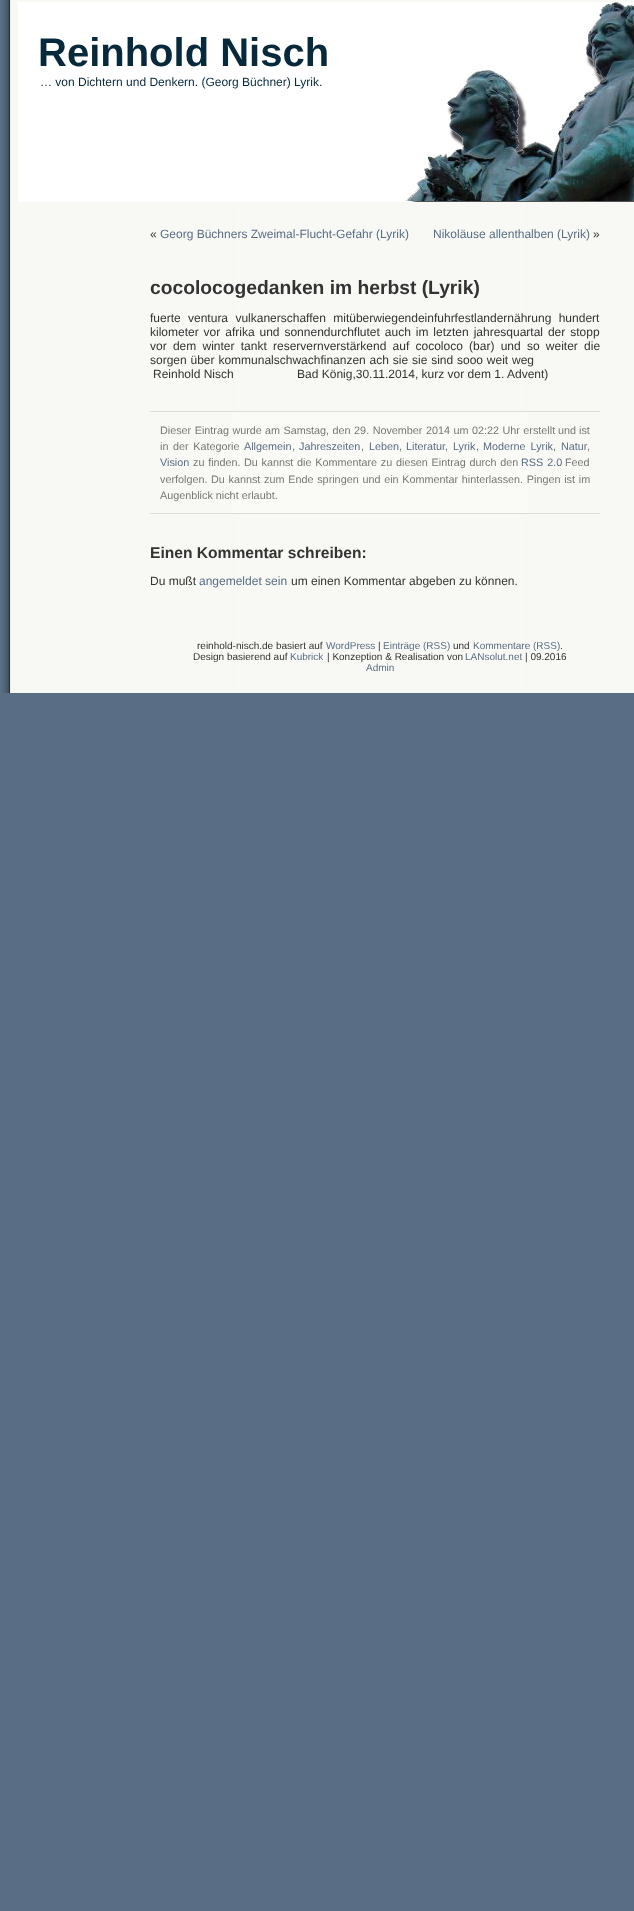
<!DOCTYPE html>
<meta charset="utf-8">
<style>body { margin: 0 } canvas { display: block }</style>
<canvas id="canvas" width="634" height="1911"></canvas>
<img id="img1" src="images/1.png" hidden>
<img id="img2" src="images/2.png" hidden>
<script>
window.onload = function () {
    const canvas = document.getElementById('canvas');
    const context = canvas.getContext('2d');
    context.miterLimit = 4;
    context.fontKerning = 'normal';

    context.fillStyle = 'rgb(89, 109, 133)';
    context.fillRect(0, 0, 634, 1911);
    context.drawImage(document.getElementById('img1'), 2, 0, 632, 693);
    context.drawImage(document.getElementById('img2'), 18, 2, 616, 200);
    context.fillStyle = 'rgb(250, 250, 246)';
    context.fillRect(232, 412, 296, 101);
    context.fillStyle = 'rgb(221, 221, 221)';
    context.fillRect(150, 411, 450, 1);
    context.fillRect(150, 513, 450, 1);
    context.font = 'bold 40px Liberation Sans';
    context.fillStyle = 'rgb(7, 41, 60)';
    context.fillText('Reinhold Nisch', 38, 66);
    context.font = '12px Liberation Sans';
    context.fillText('… von Dichtern und Denkern. (Georg Büchner) Lyrik.', 40, 86);
    context.fillStyle = 'rgb(51, 51, 51)';
    context.fillText('«', 150, 238);
    context.fillStyle = 'rgb(89, 109, 133)';
    context.fillText('Georg Büchners Zweimal-Flucht-Gefahr (Lyrik)', 160, 238);
    context.fillText('Nikoläuse allenthalben (Lyrik)', 433, 238);
    context.fillStyle = 'rgb(51, 51, 51)';
    context.fillText('»', 593, 238);
    context.font = 'bold 19.25px Liberation Sans';
    context.fillText('cocolocogedanken im herbst (Lyrik)', 150, 294);
    context.wordSpacing = '4px';
    context.font = '12px Liberation Sans';
    context.fillText('fuerte ventura vulkanerschaffen mitüberwiegendeinfuhrfestlandernährung hundert', 150, 322);
    context.wordSpacing = '1.6px';
    context.fillText('kilometer vor afrika und sonnendurchflutet auch im letzten jahresquartal der stopp', 150, 336);
    context.wordSpacing = '2.9px';
    context.fillText('vor dem winter tankt reservernverstärkend auf cocoloco (bar) und so weiter die', 150, 350);
    context.wordSpacing = '0.5px';
    context.fillText('sorgen über kommunalschwachfinanzen ach sie sie sind sooo weit weg', 150, 364);
    context.wordSpacing = '0px';
    context.fillText('Reinhold Nisch                   Bad König,30.11.2014, kurz vor dem 1. Advent)', 153, 378);
    context.wordSpacing = '0.5px';
    context.font = '10.8px Liberation Sans';
    context.fillStyle = 'rgb(119, 119, 119)';
    context.fillText('Dieser Eintrag wurde', 160, 434);
    context.fillText('am Samstag, den 29. November 2014 um 02:22 Uhr erstellt', 265, 434);
    context.wordSpacing = '0px';
    context.fillText('und ist', 558, 434);
    context.wordSpacing = '1.6px';
    context.fillText('in der Kategorie', 160, 450);
    context.wordSpacing = '0px';
    context.fillStyle = 'rgb(89, 109, 133)';
    context.fillText('Allgemein', 244, 450);
    context.fillStyle = 'rgb(119, 119, 119)';
    context.fillText(',', 292, 450);
    context.fillStyle = 'rgb(89, 109, 133)';
    context.fillText('Jahreszeiten', 299, 450);
    context.fillStyle = 'rgb(119, 119, 119)';
    context.fillText(',', 361, 450);
    context.fillStyle = 'rgb(89, 109, 133)';
    context.fillText('Leben', 369, 450);
    context.fillStyle = 'rgb(119, 119, 119)';
    context.fillText(',', 399, 450);
    context.fillStyle = 'rgb(89, 109, 133)';
    context.fillText('Literatur', 406, 450);
    context.fillStyle = 'rgb(119, 119, 119)';
    context.fillText(',', 445, 450);
    context.fillStyle = 'rgb(89, 109, 133)';
    context.fillText('Lyrik', 453, 450);
    context.fillStyle = 'rgb(119, 119, 119)';
    context.fillText(',', 476, 450);
    context.wordSpacing = '2px';
    context.fillStyle = 'rgb(89, 109, 133)';
    context.fillText('Moderne Lyrik', 483, 450);
    context.wordSpacing = '0px';
    context.fillStyle = 'rgb(119, 119, 119)';
    context.fillText(',', 553, 450);
    context.fillStyle = 'rgb(89, 109, 133)';
    context.fillText('Natur', 561, 450);
    context.fillStyle = 'rgb(119, 119, 119)';
    context.fillText(',', 587, 450);
    context.fillStyle = 'rgb(89, 109, 133)';
    context.fillText('Vision', 160, 466);
    context.wordSpacing = '0.75px';
    context.fillStyle = 'rgb(119, 119, 119)';
    context.fillText('zu finden.', 193, 466);
    context.fillText('Du kannst die Kommentare zu diesen Eintrag durch den', 244, 466);
    context.wordSpacing = '1px';
    context.fillStyle = 'rgb(89, 109, 133)';
    context.fillText('RSS 2.0', 521, 466);
    context.wordSpacing = '0px';
    context.fillStyle = 'rgb(119, 119, 119)';
    context.fillText('Feed', 565, 466);
    context.fillText('verfolgen.', 160, 483);
    context.wordSpacing = '0.75px';
    context.fillText('Du kannst zum Ende springen und ein Kommentar hinterlassen. Pingen ist im', 211, 483);
    context.wordSpacing = '0px';
    context.fillText('Augenblick nicht erlaubt.', 160, 499);
    context.font = 'bold 15.6px Liberation Sans';
    context.fillStyle = 'rgb(51, 51, 51)';
    context.fillText('Einen Kommentar schreiben:', 150, 558);
    context.font = '12px Liberation Sans';
    context.fillText('Du mußt', 150, 585);
    context.fillStyle = 'rgb(89, 109, 133)';
    context.fillText('angemeldet sein', 199, 585);
    context.fillStyle = 'rgb(51, 51, 51)';
    context.fillText('um einen Kommentar abgeben zu können.', 291, 585);
    context.font = '10px Liberation Sans';
    context.fillText('reinhold-nisch.de basiert auf', 197, 649);
    context.fillStyle = 'rgb(89, 109, 133)';
    context.fillText('WordPress', 326, 649);
    context.fillStyle = 'rgb(51, 51, 51)';
    context.fillText('|', 378, 649);
    context.fillStyle = 'rgb(89, 109, 133)';
    context.fillText('Einträge (RSS)', 383, 649);
    context.fillStyle = 'rgb(51, 51, 51)';
    context.fillText('und', 453, 649);
    context.fillStyle = 'rgb(89, 109, 133)';
    context.fillText('Kommentare (RSS)', 473, 649);
    context.fillStyle = 'rgb(51, 51, 51)';
    context.fillText('.', 560, 649);
    context.fillText('Design basierend auf', 193, 660);
    context.fillStyle = 'rgb(89, 109, 133)';
    context.fillText('Kubrick', 290, 660);
    context.fillStyle = 'rgb(51, 51, 51)';
    context.fillText('| Konzeption & Realisation von', 327, 660);
    context.fillStyle = 'rgb(89, 109, 133)';
    context.fillText('LANsolut.net', 465, 660);
    context.fillStyle = 'rgb(51, 51, 51)';
    context.fillText('| 09.2016', 525, 660);
    context.fillStyle = 'rgb(89, 109, 133)';
    context.fillText('Admin', 366, 671);
};
</script>
